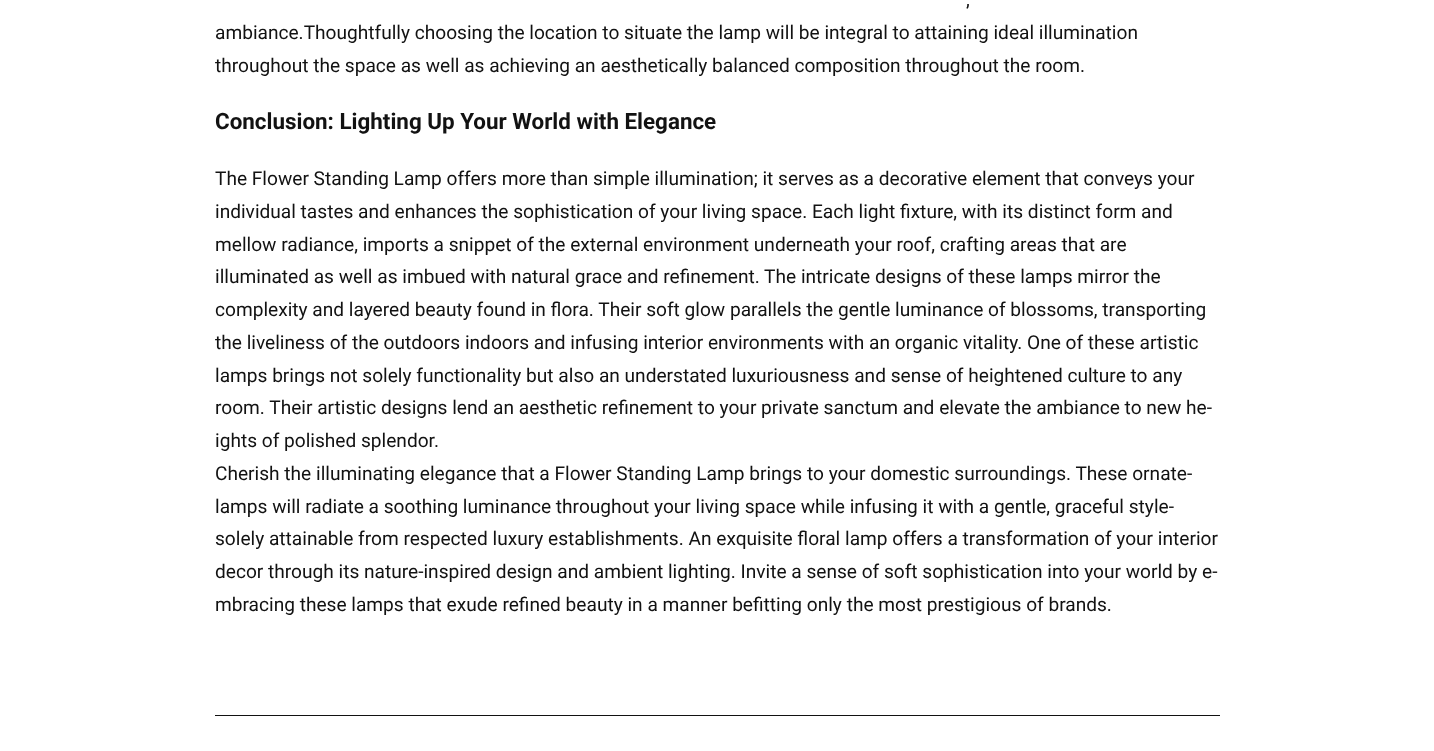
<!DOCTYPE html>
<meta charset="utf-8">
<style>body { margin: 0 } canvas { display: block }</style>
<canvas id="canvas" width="1434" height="751"></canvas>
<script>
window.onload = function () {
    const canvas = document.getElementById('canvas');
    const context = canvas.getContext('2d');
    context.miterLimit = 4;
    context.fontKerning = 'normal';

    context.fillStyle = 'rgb(255, 255, 255)';
    context.fillRect(0, 0, 1434, 751);
    context.fillStyle = 'rgb(18, 18, 18)';
    context.fillRect(215, 715, 1005, 1);
    context.font = '19.12px Roboto';
    context.fillText(',', 966, 6);
    context.fillText('ambiance.Thoughtfully choosing the location to situate the lamp will be integral to attaining ideal illumination', 215, 39);
    context.fillText('throughout the space as well as achieving an aesthetically balanced composition throughout the room.', 215, 72);
    context.font = 'bold 22.4px Roboto';
    context.fillText('Conclusion: Lighting Up Your World with Elegance', 215, 129);
    context.font = '19.12px Roboto';
    context.fillText('The Flower Standing Lamp offers more than simple illumination; it serves as a decorative element that conveys your', 215, 185);
    context.fillText('individual tastes and enhances the sophistication of your living space. Each light fixture, with its distinct form and', 215, 218);
    context.fillText('mellow radiance, imports a snippet of the external environment underneath your roof, crafting areas that are', 215, 251);
    context.fillText('illuminated as well as imbued with natural grace and refinement. The intricate designs of these lamps mirror the', 215, 283);
    context.fillText('complexity and layered beauty found in flora. Their soft glow parallels the gentle luminance of blossoms, transporting', 215, 316);
    context.fillText('the liveliness of the outdoors indoors and infusing interior environments with an organic vitality. One of these artistic', 215, 349);
    context.fillText('lamps brings not solely functionality but also an understated luxuriousness and sense of heightened culture to any', 215, 382);
    context.fillText('room. Their artistic designs lend an aesthetic refinement to your private sanctum and elevate the ambiance to new he-', 215, 414);
    context.fillText('ights of polished splendor.', 215, 447);
    context.fillText('Cherish the illuminating elegance that a Flower Standing Lamp brings to your domestic surroundings. These ornate-', 215, 480);
    context.fillText('lamps will radiate a soothing luminance throughout your living space while infusing it with a gentle, graceful style-', 215, 513);
    context.fillText('solely attainable from respected luxury establishments. An exquisite floral lamp offers a transformation of your interior', 215, 545);
    context.fillText('decor through its nature-inspired design and ambient lighting. Invite a sense of soft sophistication into your world by e-', 215, 578);
    context.fillText('mbracing these lamps that exude refined beauty in a manner befitting only the most prestigious of brands.', 215, 611);
};
</script>
